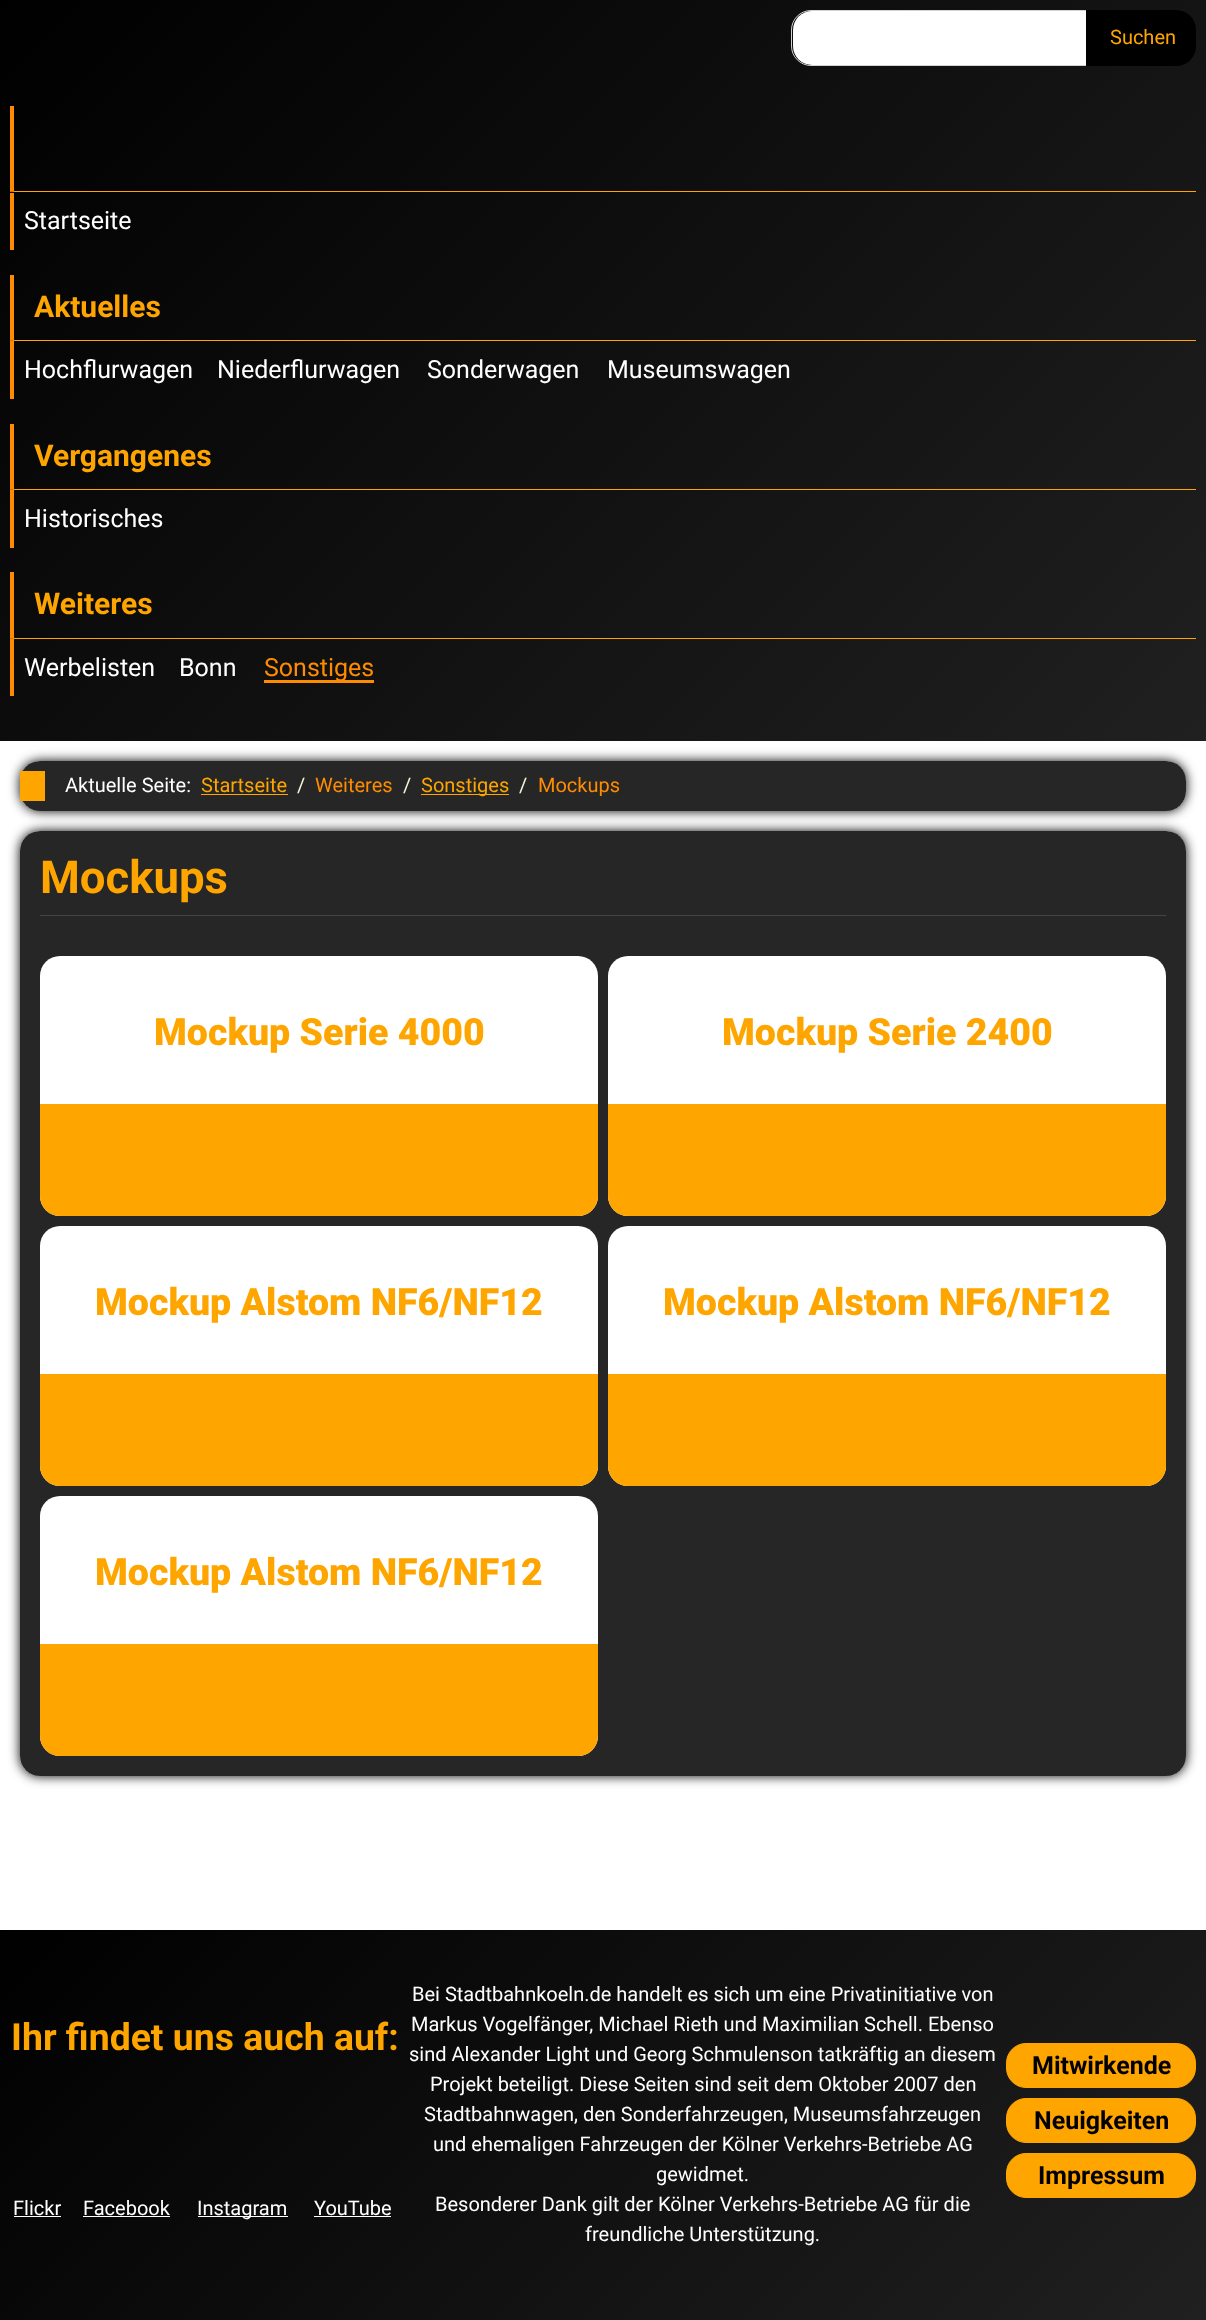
<!DOCTYPE html>
<meta charset="utf-8">
<style>body { margin: 0 } canvas { display: block }</style>
<canvas id="canvas" width="1206" height="2320"></canvas>
<script>
window.onload = function () {
    const canvas = document.getElementById('canvas');
    const context = canvas.getContext('2d');
    context.miterLimit = 4;
    context.fontKerning = 'normal';
    let gradient;

    context.fillStyle = 'rgb(255, 255, 255)';
    context.fillRect(0, 0, 1206, 2320);
    gradient = context.createLinearGradient(116, -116, 1090, 858);
    gradient.addColorStop(0, 'rgb(0, 0, 0)');
    gradient.addColorStop(1, 'rgb(32, 32, 32)');
    context.fillStyle = gradient;
    context.fillRect(0, 0, 1206, 741);
    context.fillStyle = 'rgb(255, 255, 255)';
    context.beginPath();
    context.roundRect(793, 11, 293, 54, [19, 0, 0, 19]);
    context.fill();
    context.beginPath();
    context.roundRect(791.5, 10.5, 296, 55, [19.5, 0, 0, 19.5]);
    context.strokeStyle = 'rgb(206, 212, 218)';
    context.stroke();
    context.fillStyle = 'rgb(0, 0, 0)';
    context.beginPath();
    context.roundRect(1086, 10, 110, 56, [0, 20, 20, 0]);
    context.fill();
    context.fillStyle = 'rgb(255, 165, 0)';
    context.beginPath();
    context.moveTo(1196, 192);
    context.lineTo(10, 192);
    context.lineTo(14, 191);
    context.lineTo(1196, 191);
    context.closePath();
    context.fill();
    context.fillStyle = 'rgb(255, 140, 0)';
    context.beginPath();
    context.moveTo(10, 192);
    context.lineTo(10, 106);
    context.lineTo(14, 106);
    context.lineTo(14, 191);
    context.closePath();
    context.fill();
    context.fillRect(10, 193, 4, 57);
    context.fillStyle = 'rgb(255, 165, 0)';
    context.beginPath();
    context.moveTo(1196, 341);
    context.lineTo(10, 341);
    context.lineTo(14, 340);
    context.lineTo(1196, 340);
    context.closePath();
    context.fill();
    context.fillStyle = 'rgb(255, 140, 0)';
    context.beginPath();
    context.moveTo(10, 341);
    context.lineTo(10, 275);
    context.lineTo(14, 275);
    context.lineTo(14, 340);
    context.closePath();
    context.fill();
    context.fillRect(10, 341, 4, 58);
    context.fillStyle = 'rgb(255, 165, 0)';
    context.beginPath();
    context.moveTo(1196, 490);
    context.lineTo(10, 490);
    context.lineTo(14, 489);
    context.lineTo(1196, 489);
    context.closePath();
    context.fill();
    context.fillStyle = 'rgb(255, 140, 0)';
    context.beginPath();
    context.moveTo(10, 490);
    context.lineTo(10, 424);
    context.lineTo(14, 424);
    context.lineTo(14, 489);
    context.closePath();
    context.fill();
    context.fillRect(10, 490, 4, 58);
    context.fillStyle = 'rgb(255, 165, 0)';
    context.beginPath();
    context.moveTo(1196, 639);
    context.lineTo(10, 639);
    context.lineTo(14, 638);
    context.lineTo(1196, 638);
    context.closePath();
    context.fill();
    context.fillStyle = 'rgb(255, 140, 0)';
    context.beginPath();
    context.moveTo(10, 639);
    context.lineTo(10, 572);
    context.lineTo(14, 572);
    context.lineTo(14, 638);
    context.closePath();
    context.fill();
    context.fillRect(10, 639, 4, 57);
    context.fillRect(264, 680, 110, 3);
    context.save();
    context.beginPath();
    context.moveTo(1, 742);
    context.lineTo(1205, 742);
    context.lineTo(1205, 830);
    context.lineTo(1, 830);
    context.closePath();
    context.moveTo(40, 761);
    context.lineTo(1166, 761);
    context.bezierCurveTo(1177, 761, 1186, 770, 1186, 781);
    context.lineTo(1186, 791);
    context.bezierCurveTo(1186, 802, 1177, 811, 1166, 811);
    context.lineTo(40, 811);
    context.bezierCurveTo(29, 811, 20, 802, 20, 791);
    context.lineTo(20, 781);
    context.bezierCurveTo(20, 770, 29, 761, 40, 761);
    context.closePath();
    context.clip('evenodd');
    context.fillStyle = 'rgb(0, 0, 0)';
    context.filter = 'blur(6px)';
    context.beginPath();
    context.roundRect(20, 761, 1166, 50, 20);
    context.fill();
    context.filter = 'none';
    context.restore();
    context.fillStyle = 'rgba(0, 0, 0, 0.85)';
    context.beginPath();
    context.roundRect(20, 761, 1166, 50, 20);
    context.fill();
    context.fillStyle = 'rgb(255, 165, 0)';
    context.fillRect(20, 771, 25, 30);
    context.fillRect(201, 794, 87, 1);
    context.fillRect(421, 794, 88, 1);
    context.save();
    context.beginPath();
    context.moveTo(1, 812);
    context.lineTo(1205, 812);
    context.lineTo(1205, 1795);
    context.lineTo(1, 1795);
    context.closePath();
    context.moveTo(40, 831);
    context.lineTo(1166, 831);
    context.bezierCurveTo(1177, 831, 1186, 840, 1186, 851);
    context.lineTo(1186, 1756);
    context.bezierCurveTo(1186, 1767, 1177, 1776, 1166, 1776);
    context.lineTo(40, 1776);
    context.bezierCurveTo(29, 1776, 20, 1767, 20, 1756);
    context.lineTo(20, 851);
    context.bezierCurveTo(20, 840, 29, 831, 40, 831);
    context.closePath();
    context.clip('evenodd');
    context.fillStyle = 'rgb(0, 0, 0)';
    context.filter = 'blur(6px)';
    context.beginPath();
    context.roundRect(20, 831, 1166, 945, 20);
    context.fill();
    context.filter = 'none';
    context.restore();
    context.fillStyle = 'rgba(0, 0, 0, 0.85)';
    context.beginPath();
    context.roundRect(20, 831, 1166, 945, 20);
    context.fill();
    context.fillStyle = 'rgb(68, 68, 68)';
    context.fillRect(40, 915, 1126, 1);
    context.fillStyle = 'rgb(255, 255, 255)';
    context.beginPath();
    context.roundRect(40, 956, 558, 260, 20);
    context.fill();
    context.fillStyle = 'rgb(255, 165, 0)';
    context.beginPath();
    context.roundRect(40, 1104, 558, 112, [0, 0, 20, 20]);
    context.fill();
    context.fillStyle = 'rgb(255, 255, 255)';
    context.beginPath();
    context.roundRect(608, 956, 558, 260, 20);
    context.fill();
    context.fillStyle = 'rgb(255, 165, 0)';
    context.beginPath();
    context.roundRect(608, 1104, 558, 112, [0, 0, 20, 20]);
    context.fill();
    context.fillStyle = 'rgb(255, 255, 255)';
    context.beginPath();
    context.roundRect(40, 1226, 558, 260, 20);
    context.fill();
    context.fillStyle = 'rgb(255, 165, 0)';
    context.beginPath();
    context.roundRect(40, 1374, 558, 112, [0, 0, 20, 20]);
    context.fill();
    context.fillStyle = 'rgb(255, 255, 255)';
    context.beginPath();
    context.roundRect(608, 1226, 558, 260, 20);
    context.fill();
    context.fillStyle = 'rgb(255, 165, 0)';
    context.beginPath();
    context.roundRect(608, 1374, 558, 112, [0, 0, 20, 20]);
    context.fill();
    context.fillStyle = 'rgb(255, 255, 255)';
    context.beginPath();
    context.roundRect(40, 1496, 558, 260, 20);
    context.fill();
    context.fillStyle = 'rgb(255, 165, 0)';
    context.beginPath();
    context.roundRect(40, 1644, 558, 112, [0, 0, 20, 20]);
    context.fill();
    gradient = context.createLinearGradient(204, 1726, 1002, 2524);
    gradient.addColorStop(0, 'rgb(0, 0, 0)');
    gradient.addColorStop(1, 'rgb(32, 32, 32)');
    context.fillStyle = gradient;
    context.fillRect(0, 1930, 1206, 390);
    context.fillStyle = 'rgb(255, 255, 255)';
    context.fillRect(14, 2216, 47, 1);
    context.fillRect(83, 2216, 87, 1);
    context.fillRect(198, 2216, 90, 1);
    context.fillRect(314, 2216, 77, 1);
    context.fillStyle = 'rgb(255, 165, 0)';
    context.beginPath();
    context.roundRect(1006.5, 2043.5, 189, 44, 19.5);
    context.fill();
    context.strokeStyle = 'rgb(255, 165, 0)';
    context.stroke();
    context.beginPath();
    context.roundRect(1006.5, 2098.5, 189, 44, 19.5);
    context.fill();
    context.stroke();
    context.beginPath();
    context.roundRect(1006.5, 2153.5, 189, 44, 19.5);
    context.fill();
    context.stroke();
    context.font = '20px Roboto';
    context.fillText('Suchen', 1110, 44);
    context.font = '25px Roboto';
    context.fillStyle = 'rgb(255, 255, 255)';
    context.fillText('Startseite', 24, 229);
    context.font = 'bold 30px Roboto';
    context.fillStyle = 'rgb(255, 165, 0)';
    context.fillText('Aktuelles', 34, 317);
    context.font = '25px Roboto';
    context.fillStyle = 'rgb(255, 255, 255)';
    context.fillText('Hochflurwagen', 24, 378);
    context.fillText('Niederflurwagen', 217, 378);
    context.fillText('Sonderwagen', 427, 378);
    context.fillText('Museumswagen', 607, 378);
    context.font = 'bold 30px Roboto';
    context.fillStyle = 'rgb(255, 165, 0)';
    context.fillText('Vergangenes', 34, 466);
    context.font = '25px Roboto';
    context.fillStyle = 'rgb(255, 255, 255)';
    context.fillText('Historisches', 24, 527);
    context.font = 'bold 30px Roboto';
    context.fillStyle = 'rgb(255, 165, 0)';
    context.fillText('Weiteres', 34, 614);
    context.font = '25px Roboto';
    context.fillStyle = 'rgb(255, 255, 255)';
    context.fillText('Werbelisten', 24, 676);
    context.fillText('Bonn', 179, 676);
    context.fillStyle = 'rgb(255, 140, 0)';
    context.fillText('Sonstiges', 264, 676);
    context.font = '20px Roboto';
    context.fillStyle = 'rgb(255, 255, 255)';
    context.fillText('Aktuelle Seite:', 65, 792);
    context.fillStyle = 'rgb(255, 165, 0)';
    context.fillText('Startseite', 201, 792);
    context.fillStyle = 'rgb(245, 245, 220)';
    context.fillText('/', 297, 792);
    context.fillStyle = 'rgb(255, 140, 0)';
    context.fillText('Weiteres', 315, 792);
    context.fillStyle = 'rgb(245, 245, 220)';
    context.fillText('/', 403, 792);
    context.fillStyle = 'rgb(255, 165, 0)';
    context.fillText('Sonstiges', 421, 792);
    context.fillStyle = 'rgb(245, 245, 220)';
    context.fillText('/', 519, 792);
    context.fillStyle = 'rgb(255, 140, 0)';
    context.fillText('Mockups', 538, 792);
    context.font = 'bold 45.5px Roboto';
    context.fillStyle = 'rgb(255, 165, 0)';
    context.fillText('Mockups', 40, 893);
    context.font = '900 37.5px Roboto';
    context.fillText('Mockup Serie 4000', 154, 1045);
    context.fillText('Mockup Serie 2400', 722, 1045);
    context.fillText('Mockup Alstom NF6/NF12', 95, 1315);
    context.fillText('Mockup Alstom NF6/NF12', 663, 1315);
    context.fillText('Mockup Alstom NF6/NF12', 95, 1585);
    context.font = 'bold 37.4px Roboto';
    context.fillText('Ihr findet uns auch auf:', 11, 2050);
    context.font = '20px Roboto';
    context.fillStyle = 'rgb(255, 255, 255)';
    context.fillText('Flickr', 13, 2215);
    context.fillText('Facebook', 83, 2215);
    context.fillText('Instagram', 197, 2215);
    context.fillText('YouTube', 314, 2215);
    context.fillText('Bei Stadtbahnkoeln.de handelt es sich um eine Privatinitiative von', 412, 2001);
    context.fillText('Markus Vogelfänger, Michael Rieth und Maximilian Schell. Ebenso', 411, 2031);
    context.fillText('sind Alexander Light und Georg Schmulenson tatkräftig an diesem', 409, 2061);
    context.fillText('Projekt beteiligt. Diese Seiten sind seit dem Oktober 2007 den', 430, 2091);
    context.fillText('Stadtbahnwagen, den Sonderfahrzeugen, Museumsfahrzeugen', 424, 2121);
    context.fillText('und ehemaligen Fahrzeugen der Kölner Verkehrs-Betriebe AG', 433, 2151);
    context.fillText('gewidmet.', 656, 2181);
    context.fillText('Besonderer Dank gilt der Kölner Verkehrs-Betriebe AG für die', 435, 2211);
    context.fillText('freundliche Unterstützung.', 585, 2241);
    context.font = 'bold 25px Roboto';
    context.fillStyle = 'rgb(0, 0, 0)';
    context.fillText('Mitwirkende', 1032, 2074);
    context.fillText('Neuigkeiten', 1034, 2129);
    context.fillText('Impressum', 1038, 2184);
};
</script>
